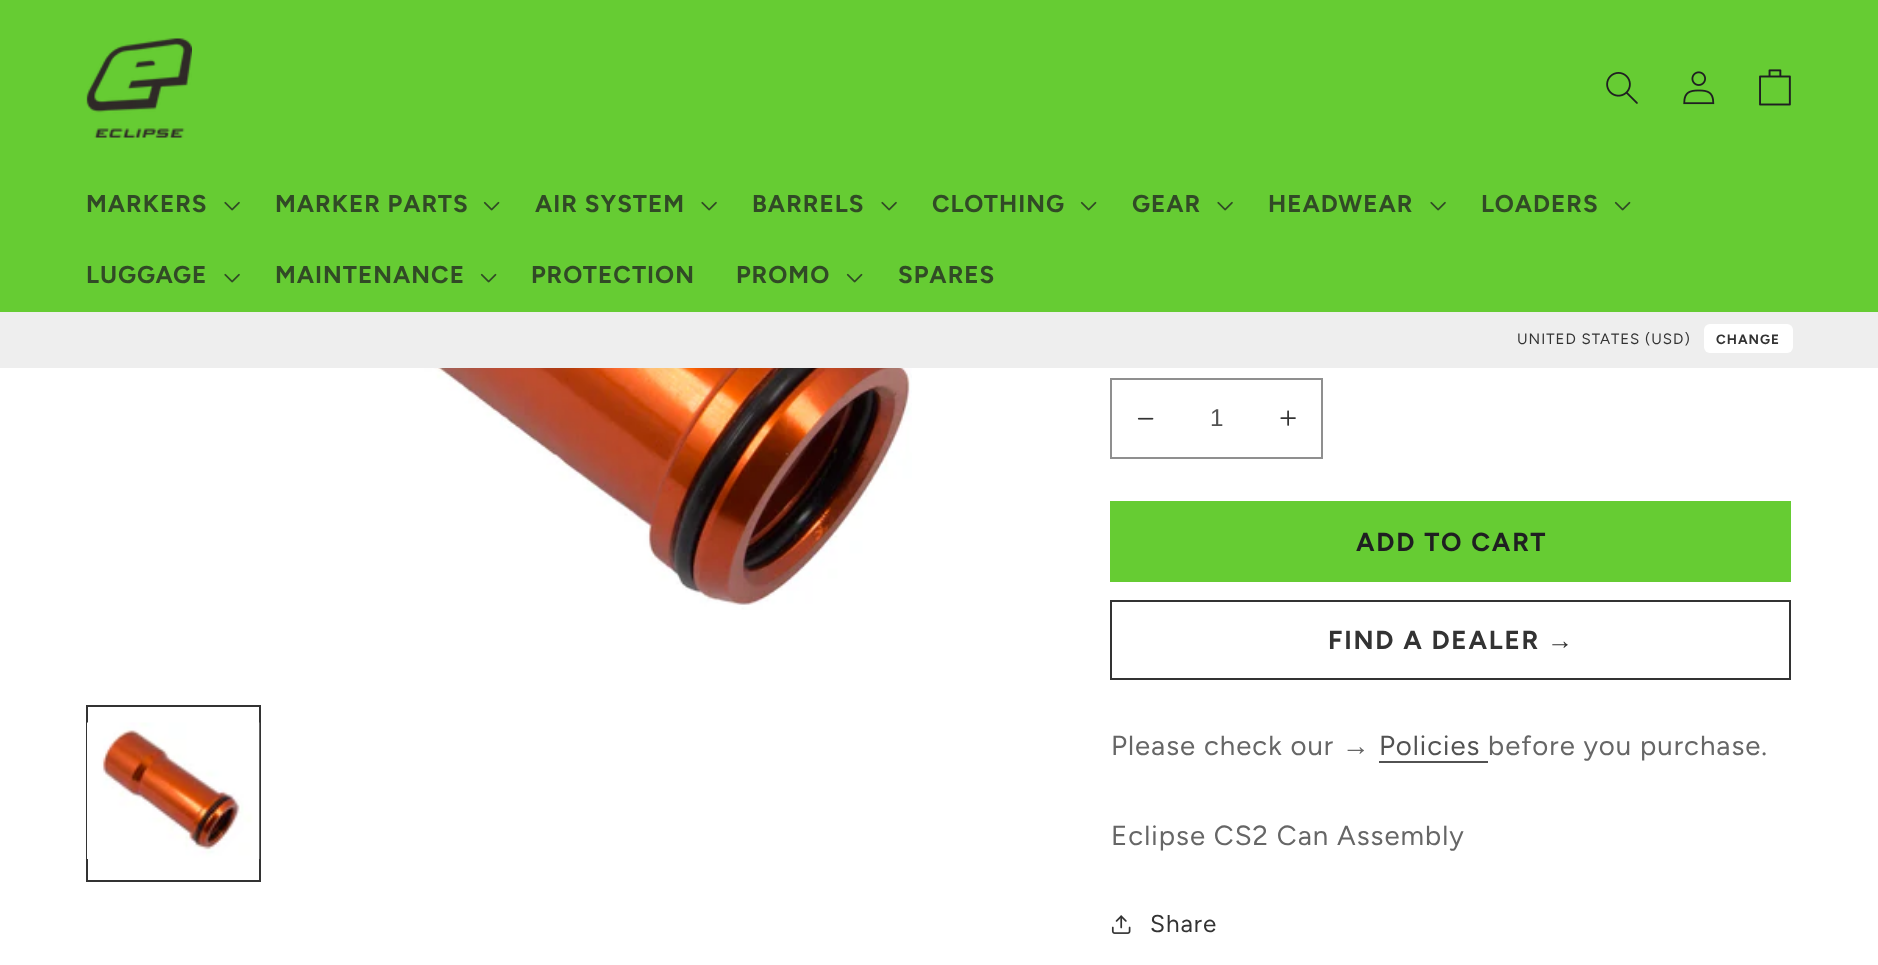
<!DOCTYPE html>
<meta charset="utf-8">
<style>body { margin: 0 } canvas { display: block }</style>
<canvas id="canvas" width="1878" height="965"></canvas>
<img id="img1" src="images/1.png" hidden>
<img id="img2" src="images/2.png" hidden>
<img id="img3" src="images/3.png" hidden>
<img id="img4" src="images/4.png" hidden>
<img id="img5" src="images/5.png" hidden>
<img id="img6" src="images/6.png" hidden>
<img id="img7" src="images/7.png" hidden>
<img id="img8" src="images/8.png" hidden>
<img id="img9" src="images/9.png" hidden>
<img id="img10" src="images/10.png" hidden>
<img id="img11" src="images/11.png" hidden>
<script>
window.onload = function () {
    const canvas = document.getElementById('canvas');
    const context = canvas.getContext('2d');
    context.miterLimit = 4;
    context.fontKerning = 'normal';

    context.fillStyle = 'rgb(255, 255, 255)';
    context.fillRect(0, 0, 1878, 965);
    context.fillStyle = 'rgb(102, 204, 51)';
    context.fillRect(0, 0, 1878, 312);
    context.drawImage(document.getElementById('img1'), 86, 38, 106, 100);
    context.drawImage(document.getElementById('img2'), 1606, 72, 32, 32);
    context.drawImage(document.getElementById('img3'), 1683, 71, 32, 34);
    context.drawImage(document.getElementById('img4'), 1759, 69, 32, 37);
    context.drawImage(document.getElementById('img5'), 224, 201, 16, 10);
    context.drawImage(document.getElementById('img6'), 483, 201, 17, 10);
    context.drawImage(document.getElementById('img5'), 701, 201, 16, 10);
    context.drawImage(document.getElementById('img5'), 881, 201, 16, 10);
    context.drawImage(document.getElementById('img6'), 1080, 201, 17, 10);
    context.drawImage(document.getElementById('img5'), 1217, 201, 16, 10);
    context.drawImage(document.getElementById('img5'), 1430, 201, 16, 10);
    context.drawImage(document.getElementById('img6'), 1614, 201, 17, 10);
    context.drawImage(document.getElementById('img5'), 224, 273, 16, 10);
    context.drawImage(document.getElementById('img6'), 480, 273, 17, 10);
    context.drawImage(document.getElementById('img6'), 846, 273, 17, 10);
    context.fillStyle = 'rgb(238, 238, 238)';
    context.fillRect(0, 312, 1878, 56);
    context.fillStyle = 'rgb(255, 255, 255)';
    context.beginPath();
    context.roundRect(1704, 324, 89, 29, 6);
    context.fill();
    context.drawImage(document.getElementById('img7'), 175, 368, 737, 242);
    context.strokeStyle = 'rgb(51, 51, 51)';
    context.lineWidth = 2;
    context.strokeRect(87, 706, 173, 175);
    context.drawImage(document.getElementById('img8'), 87, 722, 173, 137);
    context.drawImage(document.getElementById('img9'), 1137, 417, 17, 3);
    context.drawImage(document.getElementById('img10'), 1280, 410, 16, 16);
    context.strokeStyle = 'rgb(143, 143, 143)';
    context.strokeRect(1111, 379, 211, 79);
    context.fillStyle = 'rgb(102, 204, 51)';
    context.fillRect(1110, 501, 681, 81);
    context.strokeStyle = 'rgb(51, 51, 51)';
    context.strokeRect(1111, 601, 679, 78);
    context.fillStyle = 'rgb(82, 82, 82)';
    context.fillRect(1379, 761, 109, 2);
    context.drawImage(document.getElementById('img11'), 1111, 915, 20, 19);
    context.letterSpacing = '1px';
    context.font = 'bold 24.25px Figtree';
    context.fillStyle = 'rgb(49, 74, 38)';
    context.fillText('MARKERS', 86, 212);
    context.fillText('MARKER PARTS', 275, 212);
    context.fillText('AIR SYSTEM', 535, 212);
    context.fillText('BARRELS', 752, 212);
    context.fillText('CLOTHING', 932, 212);
    context.fillText('GEAR', 1132, 212);
    context.fillText('HEADWEAR', 1268, 212);
    context.fillText('LOADERS', 1481, 212);
    context.fillText('LUGGAGE', 86, 283);
    context.fillText('MAINTENANCE', 275, 283);
    context.fillText('PROTECTION', 531, 283);
    context.fillText('PROMO', 736, 283);
    context.fillText('SPARES', 898, 283);
    context.font = '15px Figtree';
    context.fillStyle = 'rgb(51, 51, 51)';
    context.fillText('UNITED STATES (USD)', 1517, 344);
    context.font = 'bold 13.5px Figtree';
    context.fillText('CHANGE', 1716, 344);
    context.letterSpacing = '0px';
    context.font = '24.25px Liberation Sans';
    context.fillStyle = 'rgb(82, 82, 82)';
    context.fillText('1', 1210, 426);
    context.letterSpacing = '1.75px';
    context.font = 'bold 26px Figtree';
    context.fillStyle = 'rgb(31, 31, 33)';
    context.fillText('ADD TO CART', 1356, 551);
    context.fillStyle = 'rgb(51, 51, 51)';
    context.fillText('FIND A DEALER', 1328, 649);
    context.font = 'bold 26px Liberation Sans';
    context.fillText('→', 1547, 649);
    context.letterSpacing = '1px';
    context.font = '27.6px Figtree';
    context.fillStyle = 'rgb(102, 102, 102)';
    context.fillText('Please check our', 1111, 755);
    context.font = '27.6px Liberation Sans';
    context.fillText('→', 1342, 755);
    context.font = '27.6px Figtree';
    context.fillStyle = 'rgb(82, 82, 82)';
    context.fillText('Policies', 1379, 755);
    context.fillStyle = 'rgb(102, 102, 102)';
    context.fillText('before you purchase.', 1488, 755);
    context.fillText('Eclipse CS2 Can Assembly', 1111, 845);
    context.font = '24.25px Figtree';
    context.fillStyle = 'rgb(51, 51, 51)';
    context.fillText('Share', 1150, 932);
};
</script>
